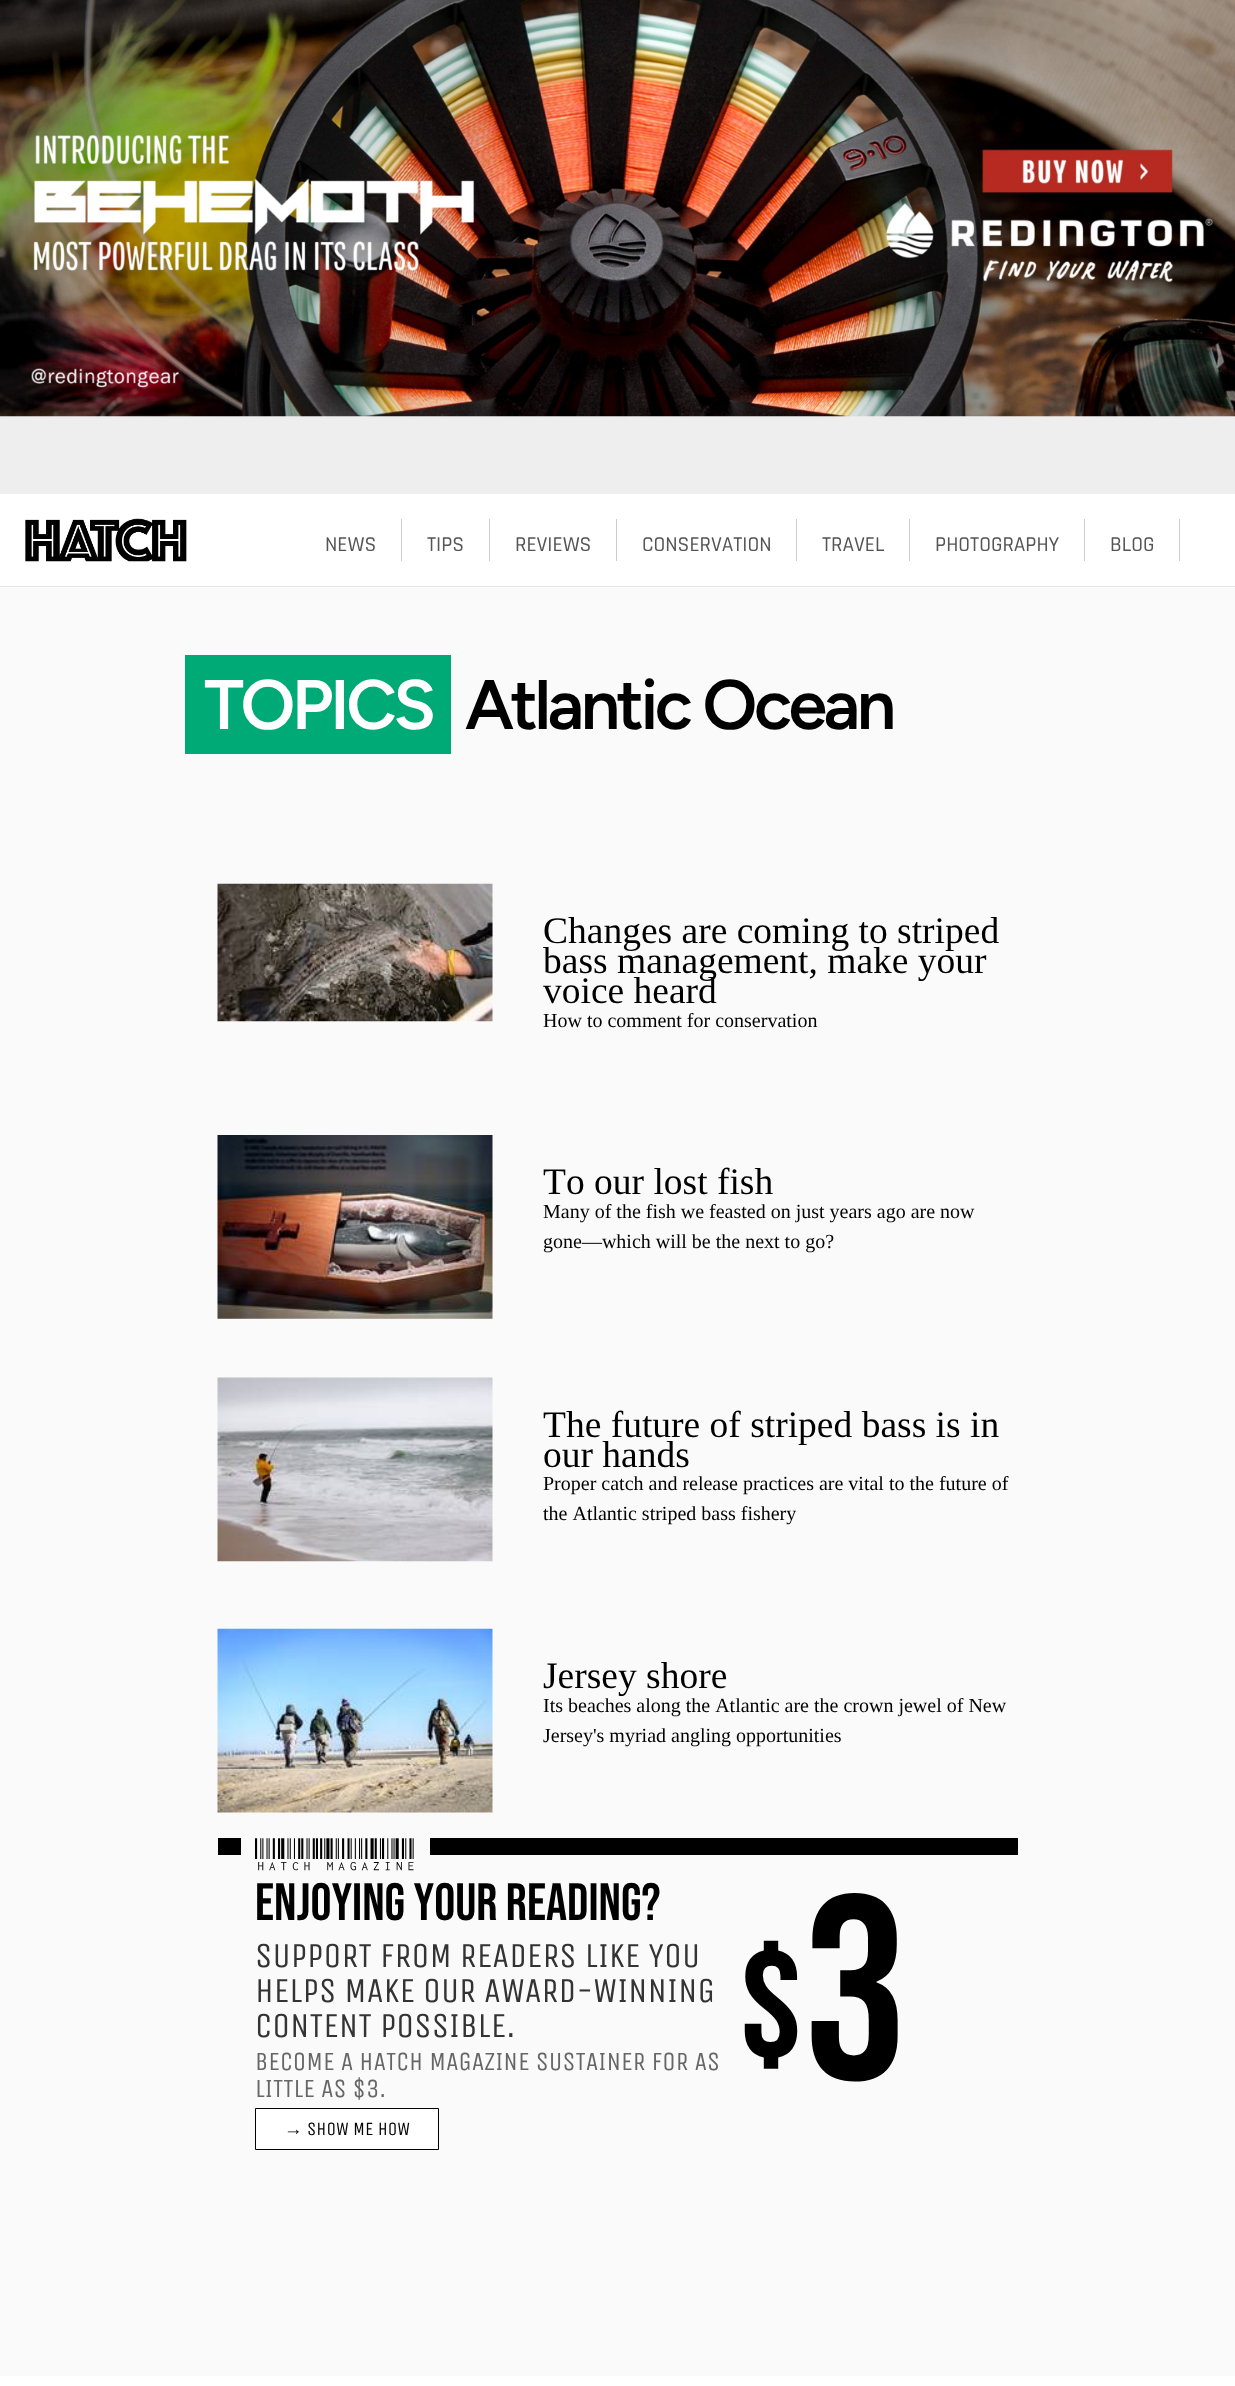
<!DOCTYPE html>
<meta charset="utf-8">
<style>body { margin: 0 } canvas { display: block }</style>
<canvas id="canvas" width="1235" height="2386"></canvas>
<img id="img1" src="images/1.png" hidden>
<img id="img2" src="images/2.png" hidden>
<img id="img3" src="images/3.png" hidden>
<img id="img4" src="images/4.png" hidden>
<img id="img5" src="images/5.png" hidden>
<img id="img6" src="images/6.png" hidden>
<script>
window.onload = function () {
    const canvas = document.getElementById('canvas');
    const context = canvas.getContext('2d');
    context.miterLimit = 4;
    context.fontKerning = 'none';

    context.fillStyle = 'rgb(255, 255, 255)';
    context.fillRect(0, 0, 1235, 2386);
    context.fillStyle = 'rgb(250, 250, 250)';
    context.fillRect(0, 588, 1235, 1788);
    context.fillStyle = 'rgb(238, 238, 238)';
    context.fillRect(0, 416, 1235, 78);
    context.drawImage(document.getElementById('img1'), 0, 0, 1235, 417);
    context.fillStyle = 'rgb(230, 230, 230)';
    context.fillRect(0, 586, 1235, 1);
    context.drawImage(document.getElementById('img2'), 25, 518, 162, 44);
    context.fillStyle = 'rgb(204, 204, 204)';
    context.fillRect(401, 519, 1, 42);
    context.fillRect(489, 519, 1, 42);
    context.fillRect(616, 519, 1, 42);
    context.fillRect(796, 519, 1, 42);
    context.fillRect(909, 519, 1, 42);
    context.fillRect(1084, 519, 1, 42);
    context.fillRect(1179, 519, 1, 42);
    context.fillStyle = 'rgb(0, 170, 119)';
    context.fillRect(185, 655, 266, 99);
    context.drawImage(document.getElementById('img3'), 217, 883, 276, 139);
    context.drawImage(document.getElementById('img4'), 217, 1135, 276, 184);
    context.drawImage(document.getElementById('img5'), 217, 1377, 276, 185);
    context.drawImage(document.getElementById('img6'), 217, 1628, 276, 185);
    context.fillStyle = 'rgb(0, 0, 0)';
    context.fillRect(218, 1838, 800, 17);
    context.fillStyle = 'rgb(250, 250, 250)';
    context.fillRect(241, 1838, 189, 17);
    context.fillStyle = 'rgb(255, 255, 255)';
    context.beginPath();
    context.rect(255.5, 2108.5, 183, 41);
    context.fill();
    context.strokeStyle = 'rgb(0, 0, 0)';
    context.stroke();
    context.font = '500 21.25px Rajdhani';
    context.fillStyle = 'rgb(85, 85, 85)';
    context.fillText('NEWS', 325, 551);
    context.fillText('TIPS', 427, 551);
    context.fillText('REVIEWS', 515, 551);
    context.fillText('CONSERVATION', 642, 551);
    context.fillText('TRAVEL', 822, 551);
    context.fillText('PHOTOGRAPHY', 935, 551);
    context.fillText('BLOG', 1110, 551);
    context.letterSpacing = '-3.5px';
    context.font = '600 70px Figtree';
    context.fillStyle = 'rgb(255, 255, 255)';
    context.fillText('TOPICS', 204, 729);
    context.fillStyle = 'rgb(0, 0, 0)';
    context.fillText('Atlantic Ocean', 465, 729);
    context.letterSpacing = '0px';
    context.font = '37.5px Liberation Serif';
    context.fillText('Changes are coming to striped', 543, 943);
    context.fillText('bass management, make your', 543, 973);
    context.fillText('voice heard', 543, 1003);
    context.font = '20px Liberation Serif';
    context.fillText('How to comment for conservation', 543, 1027);
    context.font = '37.5px Liberation Serif';
    context.fillText('To our lost fish', 543, 1194);
    context.font = '20px Liberation Serif';
    context.fillText('Many of the fish we feasted on just years ago are now', 543, 1218);
    context.fillText('gone—which will be the next to go?', 543, 1248);
    context.font = '37.5px Liberation Serif';
    context.fillText('The future of striped bass is in', 543, 1437);
    context.fillText('our hands', 543, 1467);
    context.font = '20px Liberation Serif';
    context.fillText('Proper catch and release practices are vital to the future of', 543, 1490);
    context.fillText('the Atlantic striped bass fishery', 543, 1520);
    context.font = '37.5px Liberation Serif';
    context.fillText('Jersey shore', 543, 1688);
    context.font = '20px Liberation Serif';
    context.fillText('Its beaches along the Atlantic are the crown jewel of New', 543, 1712);
    context.fillText('Jersey\'s myriad angling opportunities', 543, 1742);
    context.font = '35px "Libre Barcode 128 Text"';
    context.fillText('HATCH MAGAZINE', 255, 1859);
    context.font = '52.5px Bebas Neue';
    context.fillText('ENJOYING YOUR READING?', 255, 1920);
    context.font = '160px Bebas Neue';
    context.fillText('$', 739, 2060);
    context.font = '262px Bebas Neue';
    context.fillText('3', 803, 2079);
    context.font = '35px Unica One';
    context.fillStyle = 'rgb(51, 51, 51)';
    context.fillText('SUPPORT FROM READERS LIKE YOU', 255, 1967);
    context.fillText('HELPS MAKE OUR AWARD-WINNING', 255, 2002);
    context.fillText('CONTENT POSSIBLE.', 255, 2037);
    context.font = '26.25px Unica One';
    context.fillStyle = 'rgb(102, 102, 102)';
    context.fillText('BECOME A HATCH MAGAZINE SUSTAINER FOR AS', 255, 2070);
    context.fillText('LITTLE AS $3.', 255, 2097);
    context.font = '18.75px Liberation Serif';
    context.fillStyle = 'rgb(0, 0, 0)';
    context.fillText('→', 284, 2135);
    context.font = '18.75px Unica One';
    context.fillText('SHOW ME HOW', 307, 2135);
};
</script>
